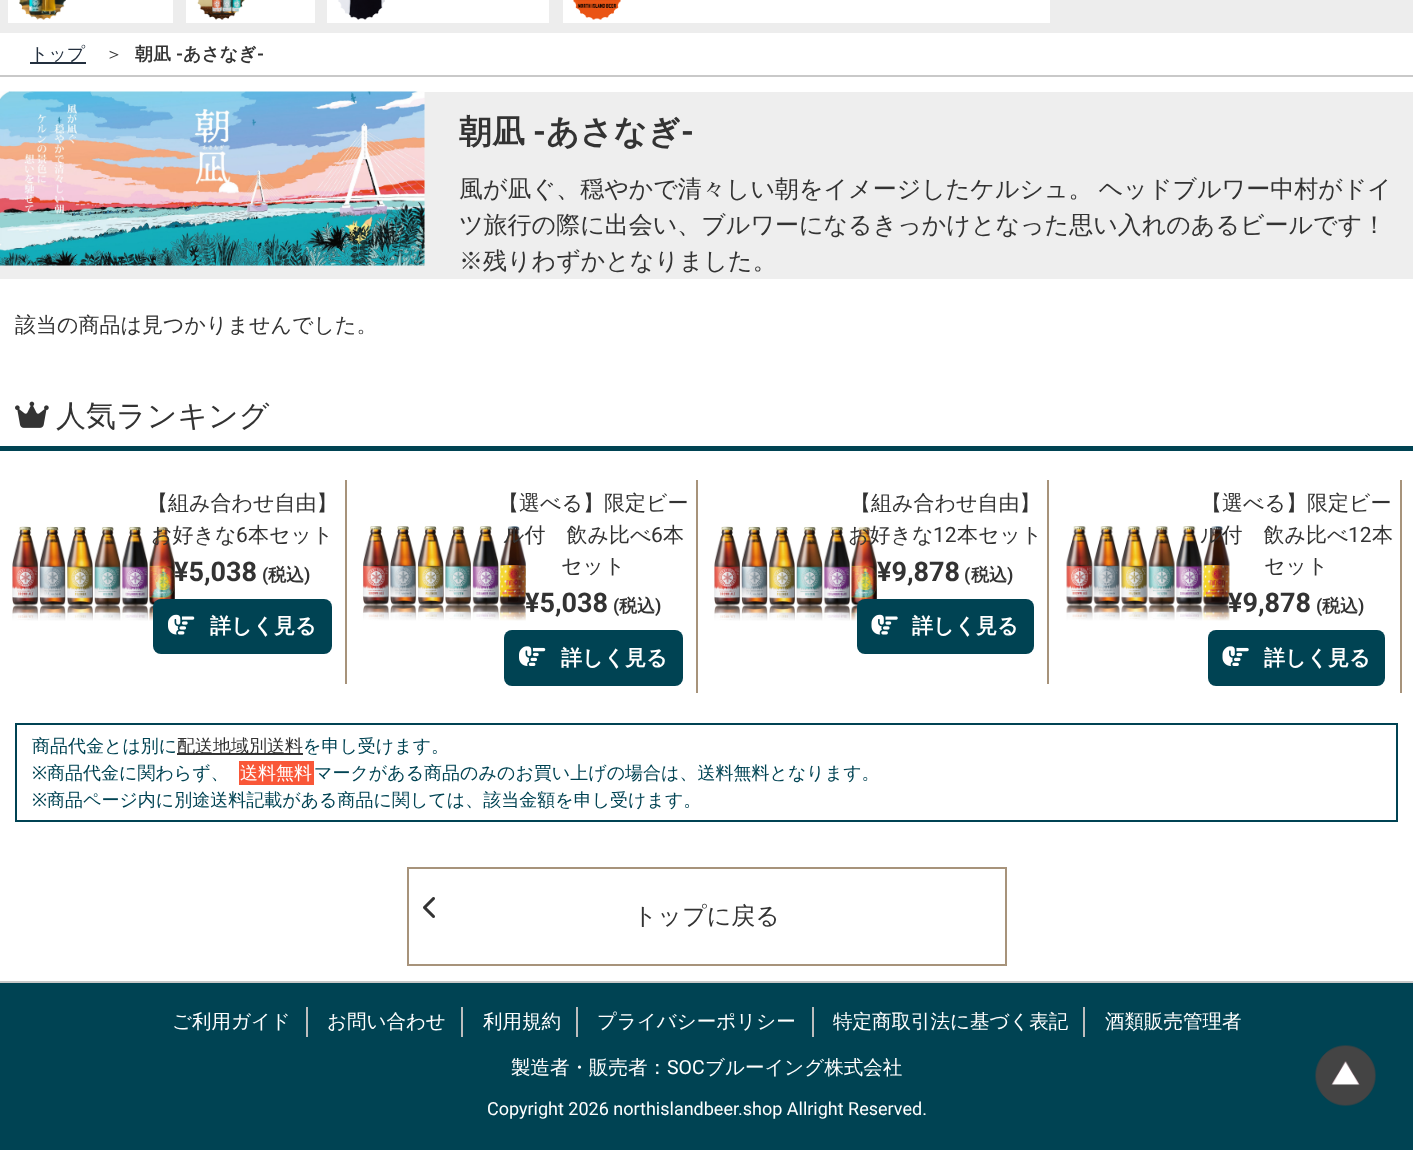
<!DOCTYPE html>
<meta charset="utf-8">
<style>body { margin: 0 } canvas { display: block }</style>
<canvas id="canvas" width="1413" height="1150"></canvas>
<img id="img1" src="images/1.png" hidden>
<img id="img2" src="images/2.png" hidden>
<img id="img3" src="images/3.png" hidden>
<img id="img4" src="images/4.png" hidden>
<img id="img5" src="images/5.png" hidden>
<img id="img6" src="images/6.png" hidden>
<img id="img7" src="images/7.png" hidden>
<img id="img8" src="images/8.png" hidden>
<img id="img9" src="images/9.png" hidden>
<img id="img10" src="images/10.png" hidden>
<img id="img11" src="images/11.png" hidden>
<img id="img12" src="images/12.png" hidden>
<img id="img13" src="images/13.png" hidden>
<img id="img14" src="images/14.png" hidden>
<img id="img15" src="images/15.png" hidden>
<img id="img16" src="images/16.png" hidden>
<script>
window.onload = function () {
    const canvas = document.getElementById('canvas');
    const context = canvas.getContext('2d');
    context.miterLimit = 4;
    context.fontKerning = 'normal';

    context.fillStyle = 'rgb(255, 255, 255)';
    context.fillRect(0, 0, 1413, 1150);
    context.fillStyle = 'rgb(237, 237, 237)';
    context.fillRect(0, 0, 1413, 33);
    context.fillStyle = 'rgb(255, 255, 255)';
    context.fillRect(8, 0, 165, 23);
    context.drawImage(document.getElementById('img1'), 19, 0, 47, 20);
    context.fillRect(186, 0, 129, 23);
    context.drawImage(document.getElementById('img2'), 197, 0, 48, 20);
    context.fillRect(327, 0, 222, 23);
    context.drawImage(document.getElementById('img3'), 338, 0, 47, 20);
    context.fillRect(563, 0, 487, 23);
    context.drawImage(document.getElementById('img4'), 573, 0, 48, 20);
    context.fillStyle = 'rgb(201, 201, 201)';
    context.fillRect(0, 75, 1413, 2);
    context.fillStyle = 'rgb(35, 47, 62)';
    context.fillRect(30, 62, 56, 2);
    context.fillStyle = 'rgb(238, 238, 238)';
    context.fillRect(0, 92, 1413, 187);
    context.drawImage(document.getElementById('img5'), 0, 91, 425, 175);
    context.fillStyle = 'rgb(0, 67, 83)';
    context.fillRect(0, 446, 1413, 5);
    context.drawImage(document.getElementById('img6'), 15, 401, 34, 27);
    context.fillStyle = 'rgb(167, 147, 123)';
    context.fillRect(345, 480, 2, 204);
    context.drawImage(document.getElementById('img7'), 12, 526, 163, 95);
    context.fillStyle = 'rgb(0, 67, 83)';
    context.beginPath();
    context.roundRect(153, 599, 179, 55, 8);
    context.fill();
    context.drawImage(document.getElementById('img8'), 168, 614, 27, 21);
    context.fillStyle = 'rgb(167, 147, 123)';
    context.fillRect(696, 480, 2, 213);
    context.drawImage(document.getElementById('img9'), 362, 526, 164, 95);
    context.fillStyle = 'rgb(0, 67, 83)';
    context.beginPath();
    context.roundRect(504, 630, 179, 56, 8);
    context.fill();
    context.drawImage(document.getElementById('img10'), 519, 646, 27, 20);
    context.fillStyle = 'rgb(167, 147, 123)';
    context.fillRect(1047, 480, 2, 204);
    context.drawImage(document.getElementById('img11'), 714, 526, 163, 95);
    context.fillStyle = 'rgb(0, 67, 83)';
    context.beginPath();
    context.roundRect(857, 599, 177, 55, 8);
    context.fill();
    context.drawImage(document.getElementById('img12'), 871, 614, 27, 21);
    context.fillStyle = 'rgb(167, 147, 123)';
    context.fillRect(1400, 480, 2, 213);
    context.drawImage(document.getElementById('img13'), 1066, 526, 164, 95);
    context.fillStyle = 'rgb(0, 67, 83)';
    context.beginPath();
    context.roundRect(1208, 630, 177, 56, 8);
    context.fill();
    context.drawImage(document.getElementById('img14'), 1222, 646, 27, 20);
    context.strokeStyle = 'rgb(0, 67, 83)';
    context.lineWidth = 2;
    context.strokeRect(16, 724, 1381, 97);
    context.fillStyle = 'rgb(51, 51, 51)';
    context.fillRect(177, 753, 126, 2);
    context.fillStyle = 'rgb(249, 87, 56)';
    context.fillRect(239, 761, 75, 24);
    context.strokeStyle = 'rgb(167, 147, 123)';
    context.strokeRect(408, 868, 598, 97);
    context.drawImage(document.getElementById('img15'), 423, 897, 12, 21);
    context.fillStyle = 'rgb(201, 201, 201)';
    context.fillRect(0, 981, 1413, 2);
    context.fillStyle = 'rgb(0, 67, 83)';
    context.fillRect(0, 983, 1413, 167);
    context.fillStyle = 'rgb(189, 189, 189)';
    context.fillRect(306, 1007, 2, 30);
    context.fillRect(461, 1007, 2, 30);
    context.fillRect(576, 1007, 2, 30);
    context.fillRect(812, 1007, 2, 30);
    context.fillRect(1083, 1007, 2, 30);
    context.drawImage(document.getElementById('img16'), 1315, 1045, 61, 61);
    context.font = '500 18px WenQuanYi Zen Hei';
    context.fillStyle = 'rgb(35, 47, 62)';
    context.fillText('トップ', 30, 60);
    context.fillStyle = 'rgb(51, 51, 51)';
    context.fillText('＞', 105, 60);
    context.font = 'bold 18px WenQuanYi Zen Hei';
    context.fillText('朝凪', 135, 60);
    context.font = 'bold 18px Roboto';
    context.fillText('-', 176, 60);
    context.font = 'bold 18px WenQuanYi Zen Hei';
    context.fillText('あさなぎ', 183, 60);
    context.font = 'bold 18px Roboto';
    context.fillText('-', 257, 60);
    context.font = 'bold 33px WenQuanYi Zen Hei';
    context.fillText('朝凪', 459, 143);
    context.font = 'bold 33px Roboto';
    context.fillText('-', 533, 143);
    context.font = 'bold 33px WenQuanYi Zen Hei';
    context.fillText('あさなぎ', 546, 143);
    context.font = 'bold 33px Roboto';
    context.fillText('-', 681, 143);
    context.wordSpacing = '-1px';
    context.font = '500 24px WenQuanYi Zen Hei';
    context.fillText('風が凪ぐ、穏やかで清々しい朝をイメージしたケルシュ。 ヘッドブルワー中村がドイ', 459, 197);
    context.wordSpacing = '0px';
    context.fillText('ツ旅行の際に出会い、ブルワーになるきっかけとなった思い入れのあるビールです！', 459, 233);
    context.fillText('※残りわずかとなりました。', 459, 269);
    context.font = '500 21px WenQuanYi Zen Hei';
    context.fillText('該当の商品は見つかりませんでした。', 15, 332);
    context.font = '500 30px WenQuanYi Zen Hei';
    context.fillText('人気ランキング', 56, 426);
    context.font = '500 21px WenQuanYi Zen Hei';
    context.fillText('【組み合わせ自由】', 147, 510);
    context.fillText('お好きな', 151, 542);
    context.font = '21px Roboto';
    context.fillText('6', 236, 542);
    context.font = '500 21px WenQuanYi Zen Hei';
    context.fillText('本セット', 248, 542);
    context.font = 'bold 27px Roboto';
    context.fillText('¥5,038', 174, 581);
    context.font = 'bold 18px Roboto';
    context.fillText('(', 262, 581);
    context.font = 'bold 18px WenQuanYi Zen Hei';
    context.fillText('税込', 268, 581);
    context.font = 'bold 18px Roboto';
    context.fillText(')', 304, 581);
    context.font = 'bold 21px WenQuanYi Zen Hei';
    context.fillStyle = 'rgb(255, 255, 255)';
    context.fillText('詳しく見る', 210, 633);
    context.font = '500 21px WenQuanYi Zen Hei';
    context.fillStyle = 'rgb(51, 51, 51)';
    context.fillText('【選べる】限定ビー', 498, 510);
    context.fillText('ル付　飲み比べ', 503, 542);
    context.font = '21px Roboto';
    context.fillText('6', 651, 542);
    context.font = '500 21px WenQuanYi Zen Hei';
    context.fillText('本', 663, 542);
    context.fillText('セット', 561, 573);
    context.font = 'bold 27px Roboto';
    context.fillText('¥5,038', 525, 612);
    context.font = 'bold 18px Roboto';
    context.fillText('(', 613, 612);
    context.font = 'bold 18px WenQuanYi Zen Hei';
    context.fillText('税込', 619, 612);
    context.font = 'bold 18px Roboto';
    context.fillText(')', 655, 612);
    context.font = 'bold 21px WenQuanYi Zen Hei';
    context.fillStyle = 'rgb(255, 255, 255)';
    context.fillText('詳しく見る', 561, 665);
    context.font = '500 21px WenQuanYi Zen Hei';
    context.fillStyle = 'rgb(51, 51, 51)';
    context.fillText('【組み合わせ自由】', 850, 510);
    context.fillText('お好きな', 848, 542);
    context.font = '21px Roboto';
    context.fillText('12', 933, 542);
    context.font = '500 21px WenQuanYi Zen Hei';
    context.fillText('本セット', 957, 542);
    context.font = 'bold 27px Roboto';
    context.fillText('¥9,878', 877, 581);
    context.font = 'bold 18px Roboto';
    context.fillText('(', 964, 581);
    context.font = 'bold 18px WenQuanYi Zen Hei';
    context.fillText('税込', 971, 581);
    context.font = 'bold 18px Roboto';
    context.fillText(')', 1007, 581);
    context.font = 'bold 21px WenQuanYi Zen Hei';
    context.fillStyle = 'rgb(255, 255, 255)';
    context.fillText('詳しく見る', 912, 633);
    context.font = '500 21px WenQuanYi Zen Hei';
    context.fillStyle = 'rgb(51, 51, 51)';
    context.fillText('【選べる】限定ビー', 1201, 510);
    context.fillText('ル付　飲み比べ', 1200, 542);
    context.font = '21px Roboto';
    context.fillText('12', 1348, 542);
    context.font = '500 21px WenQuanYi Zen Hei';
    context.fillText('本', 1372, 542);
    context.fillText('セット', 1264, 573);
    context.font = 'bold 27px Roboto';
    context.fillText('¥9,878', 1228, 612);
    context.font = 'bold 18px Roboto';
    context.fillText('(', 1316, 612);
    context.font = 'bold 18px WenQuanYi Zen Hei';
    context.fillText('税込', 1322, 612);
    context.font = 'bold 18px Roboto';
    context.fillText(')', 1358, 612);
    context.font = 'bold 21px WenQuanYi Zen Hei';
    context.fillStyle = 'rgb(255, 255, 255)';
    context.fillText('詳しく見る', 1264, 665);
    context.font = '500 18px WenQuanYi Zen Hei';
    context.fillStyle = 'rgb(0, 67, 83)';
    context.fillText('商品代金とは別に', 32, 752);
    context.fillStyle = 'rgb(51, 51, 51)';
    context.fillText('配送地域別送料', 177, 752);
    context.fillStyle = 'rgb(0, 67, 83)';
    context.fillText('を申し受けます。', 303, 752);
    context.font = '18px Noto Sans';
    context.fillText('※', 32, 779);
    context.font = '500 18px WenQuanYi Zen Hei';
    context.fillText('商品代金に関わらず、', 47, 779);
    context.fillStyle = 'rgb(255, 255, 255)';
    context.fillText('送料無料', 240, 779);
    context.fillStyle = 'rgb(0, 67, 83)';
    context.fillText('マークがある商品のみのお買い上げの場合は、送料無料となります。', 314, 779);
    context.font = '18px Noto Sans';
    context.fillText('※', 32, 806);
    context.font = '500 18px WenQuanYi Zen Hei';
    context.fillText('商品ページ内に別途送料記載がある商品に関しては、該当金額を申し受けます。', 47, 806);
    context.font = '500 24px WenQuanYi Zen Hei';
    context.fillStyle = 'rgb(51, 51, 51)';
    context.fillText('トップに戻る', 633, 924);
    context.font = '500 19.5px WenQuanYi Zen Hei';
    context.fillStyle = 'rgb(255, 255, 255)';
    context.fillText('ご利用ガイド', 172, 1028);
    context.fillText('お問い合わせ', 327, 1028);
    context.fillText('利用規約', 483, 1028);
    context.fillText('プライバシーポリシー', 597, 1028);
    context.fillText('特定商取引法に基づく表記', 833, 1028);
    context.fillText('酒類販売管理者', 1105, 1028);
    context.fillText('製造者・販売者：', 511, 1074);
    context.font = '19.5px Roboto';
    context.fillText('SOC', 667, 1074);
    context.font = '500 19.5px WenQuanYi Zen Hei';
    context.fillText('ブルーイング株式会社', 705, 1074);
    context.font = '18px Roboto';
    context.fillText('Copyright 2026 northislandbeer.shop Allright Reserved.', 487, 1115);
};
</script>
